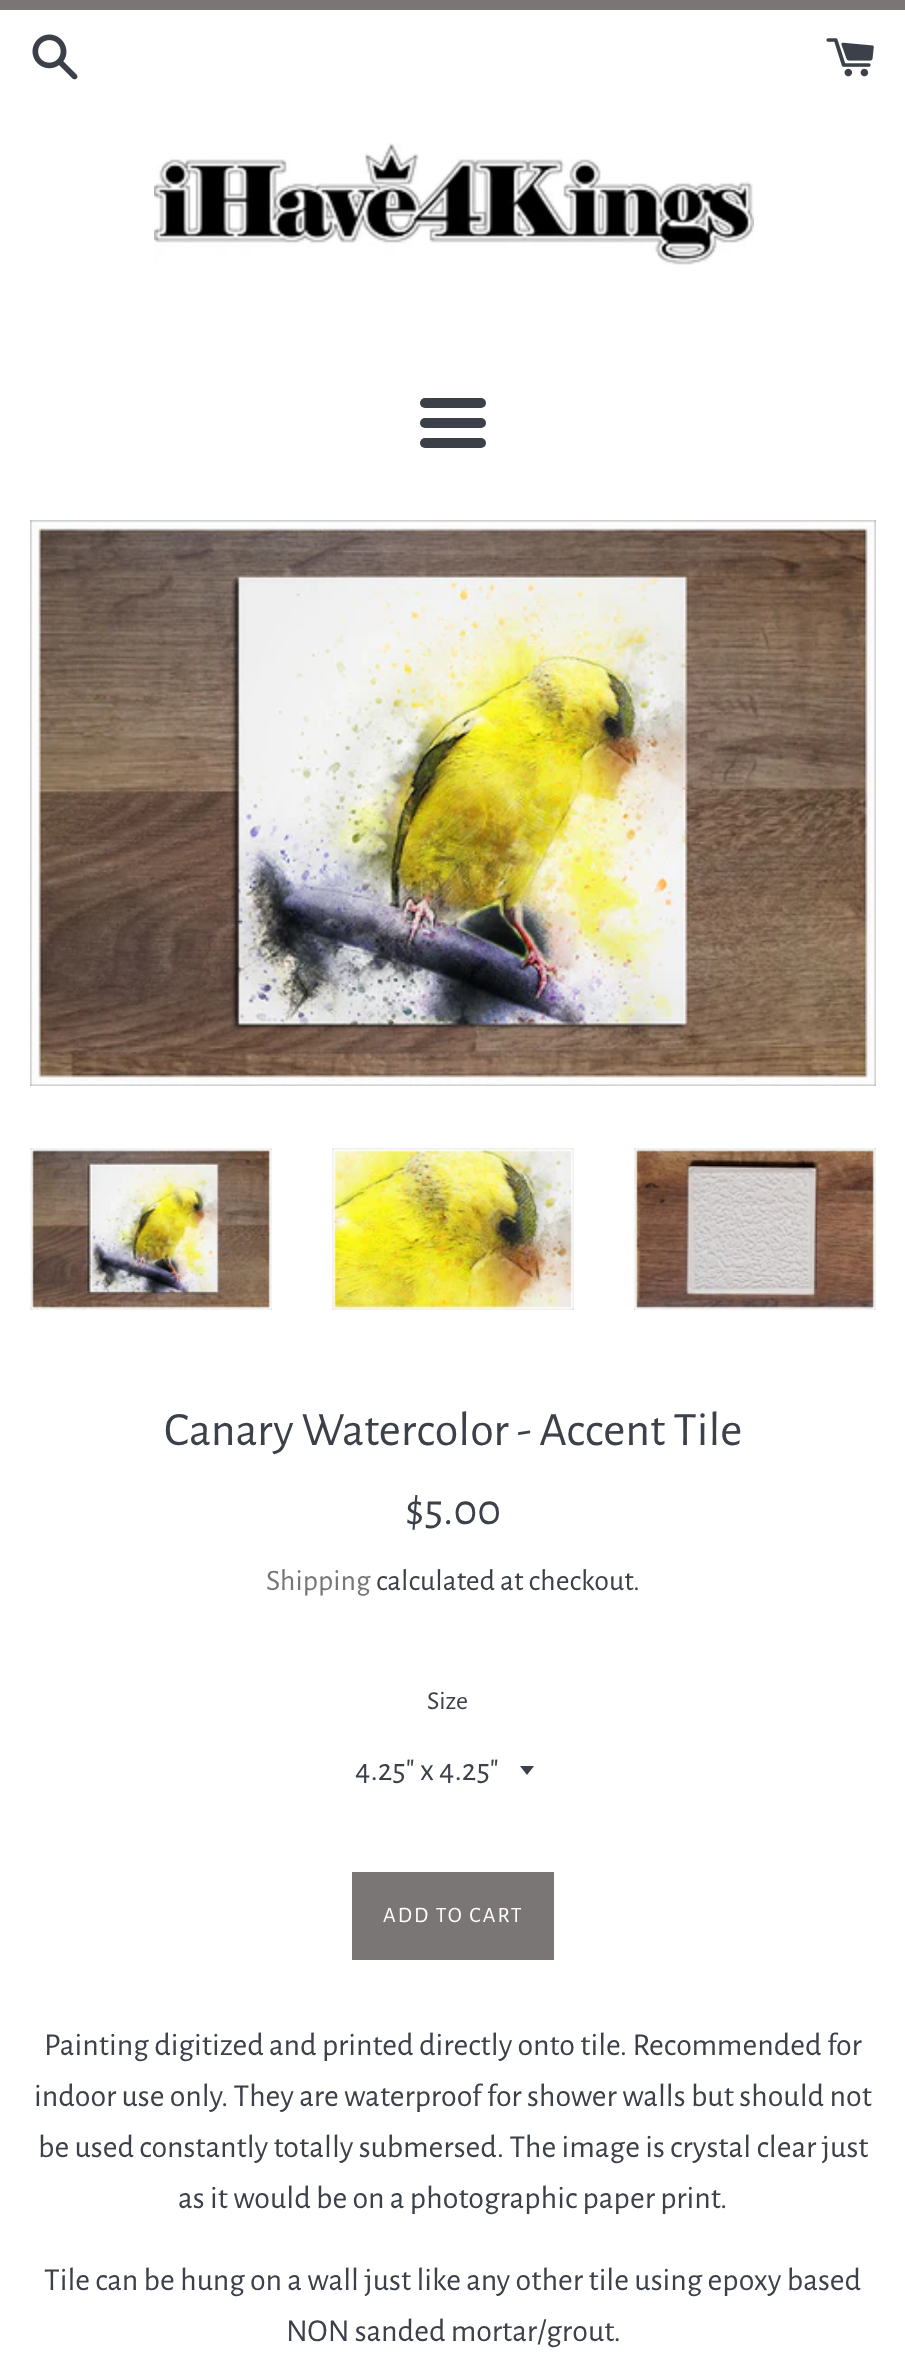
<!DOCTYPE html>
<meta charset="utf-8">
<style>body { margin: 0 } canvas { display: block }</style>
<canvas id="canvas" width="905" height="2370"></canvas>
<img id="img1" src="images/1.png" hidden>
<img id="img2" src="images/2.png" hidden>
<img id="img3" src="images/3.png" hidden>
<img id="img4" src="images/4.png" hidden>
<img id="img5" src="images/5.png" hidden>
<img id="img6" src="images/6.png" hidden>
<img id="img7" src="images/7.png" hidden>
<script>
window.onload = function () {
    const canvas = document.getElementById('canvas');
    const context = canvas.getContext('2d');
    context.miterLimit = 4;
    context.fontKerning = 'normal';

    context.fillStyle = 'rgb(255, 255, 255)';
    context.fillRect(0, 0, 905, 2370);
    context.fillStyle = 'rgb(122, 118, 118)';
    context.fillRect(0, 0, 905, 10);
    context.drawImage(document.getElementById('img1'), 32, 34, 46, 46);
    context.drawImage(document.getElementById('img2'), 826, 38, 48, 39);
    context.drawImage(document.getElementById('img3'), 154, 143, 600, 122);
    context.fillStyle = 'rgb(60, 64, 73)';
    context.beginPath();
    context.roundRect(420, 398, 66, 10, 5);
    context.fill();
    context.beginPath();
    context.roundRect(420, 418, 66, 10, 5);
    context.fill();
    context.beginPath();
    context.roundRect(420, 438, 66, 10, 5);
    context.fill();
    context.drawImage(document.getElementById('img4'), 30, 520, 846, 566);
    context.drawImage(document.getElementById('img5'), 30, 1148, 242, 162);
    context.drawImage(document.getElementById('img6'), 332, 1148, 242, 162);
    context.drawImage(document.getElementById('img7'), 634, 1148, 242, 162);
    context.beginPath();
    context.moveTo(520, 1766);
    context.lineTo(527, 1775);
    context.lineTo(534, 1766);
    context.closePath();
    context.fill();
    context.fillStyle = 'rgb(122, 118, 118)';
    context.fillRect(352, 1872, 202, 88);
    context.font = '48px Alegreya Sans';
    context.fillStyle = 'rgb(60, 64, 73)';
    context.fillText('Canary Watercolor - Accent Tile', 164, 1445);
    context.font = '45px Alegreya Sans';
    context.fillText('$5.00', 405, 1524);
    context.font = '30px Alegreya Sans';
    context.fillStyle = 'rgb(122, 118, 118)';
    context.fillText('Shipping', 266, 1590);
    context.fillStyle = 'rgb(60, 64, 73)';
    context.fillText('calculated at checkout.', 376, 1590);
    context.font = '26px Alegreya Sans';
    context.fillText('Size', 427, 1709);
    context.font = '32px Alegreya Sans';
    context.fillText('4.25" x 4.25"', 355, 1780);
    context.letterSpacing = '2px';
    context.font = '22px Alegreya Sans';
    context.fillStyle = 'rgb(255, 255, 255)';
    context.fillText('ADD TO CART', 383, 1922);
    context.letterSpacing = '0px';
    context.font = '32px Alegreya Sans';
    context.fillStyle = 'rgb(60, 64, 73)';
    context.fillText('Painting digitized and printed directly onto tile. Recommended for', 44, 2055);
    context.fillText('indoor use only. They are waterproof for shower walls but should not', 34, 2106);
    context.fillText('be used constantly totally submersed. The image is crystal clear just', 38, 2157);
    context.fillText('as it would be on a photographic paper print.', 178, 2208);
    context.fillText('Tile can be hung on a wall just like any other tile using epoxy based', 44, 2290);
    context.fillText('NON sanded mortar/grout.', 286, 2341);
};
</script>
